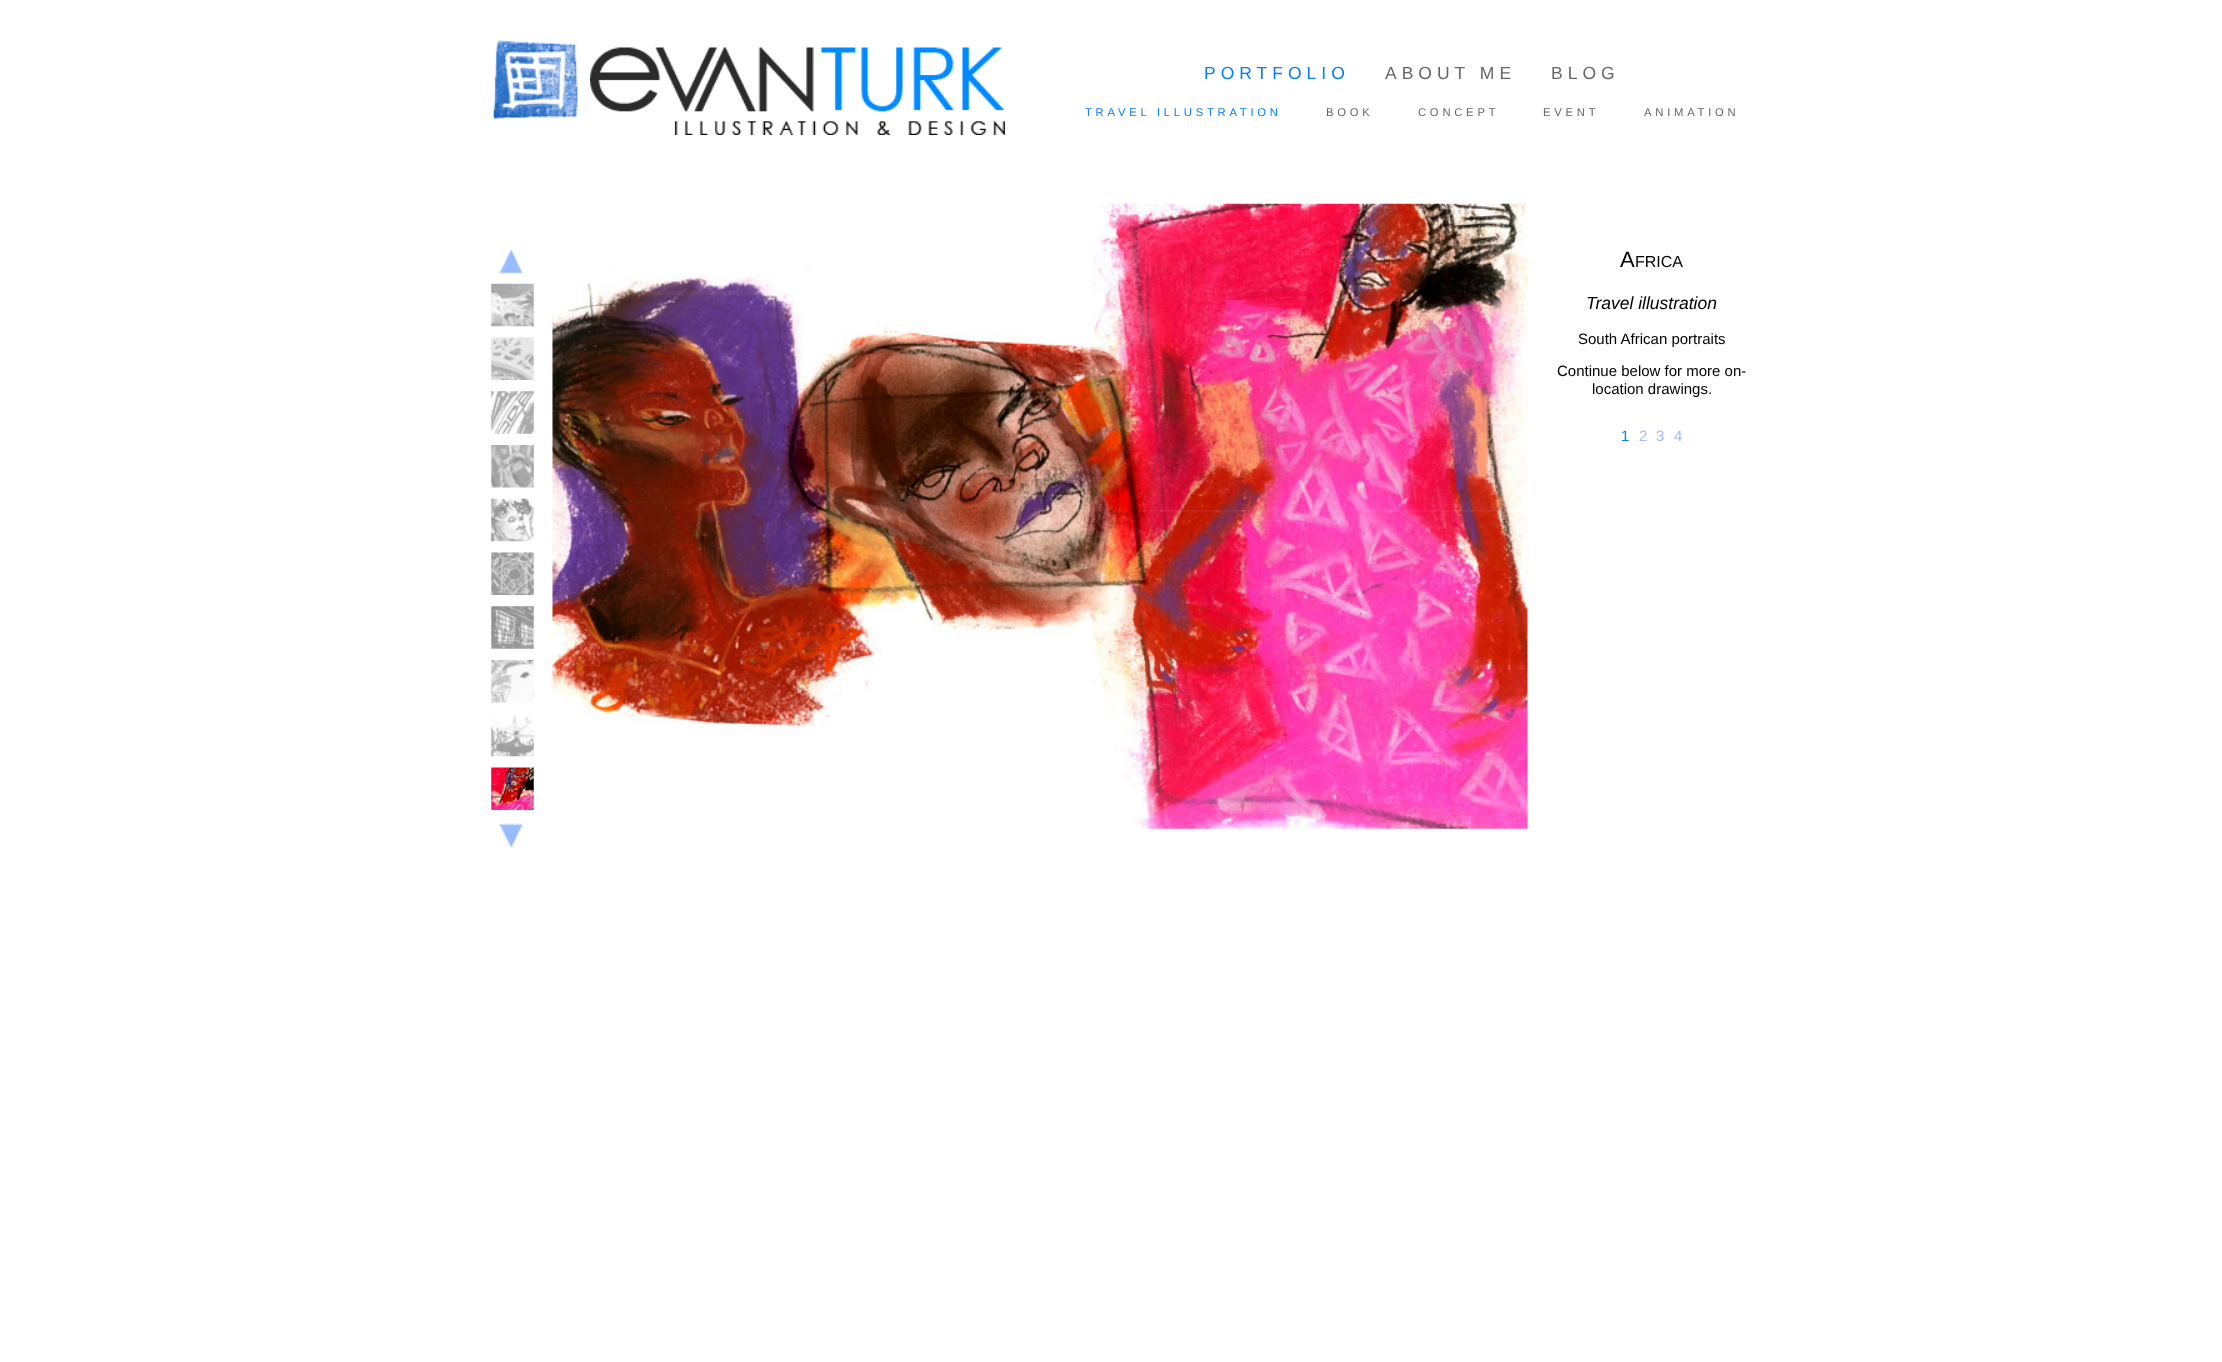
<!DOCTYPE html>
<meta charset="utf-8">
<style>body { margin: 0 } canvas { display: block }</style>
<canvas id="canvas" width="2222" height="1362"></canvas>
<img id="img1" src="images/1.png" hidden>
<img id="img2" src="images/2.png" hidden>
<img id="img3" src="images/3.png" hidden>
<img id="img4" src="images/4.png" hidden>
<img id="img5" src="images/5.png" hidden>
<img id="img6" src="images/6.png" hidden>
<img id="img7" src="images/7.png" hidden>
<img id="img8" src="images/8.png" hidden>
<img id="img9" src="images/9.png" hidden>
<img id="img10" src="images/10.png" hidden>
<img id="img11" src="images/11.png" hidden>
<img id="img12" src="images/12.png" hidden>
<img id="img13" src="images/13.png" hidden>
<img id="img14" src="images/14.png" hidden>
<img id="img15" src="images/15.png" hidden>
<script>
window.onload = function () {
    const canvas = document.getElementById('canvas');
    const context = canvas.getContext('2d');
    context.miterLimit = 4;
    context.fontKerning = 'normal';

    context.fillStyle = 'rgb(255, 255, 255)';
    context.fillRect(0, 0, 2222, 1362);
    context.drawImage(document.getElementById('img1'), 492, 40, 87, 79);
    context.drawImage(document.getElementById('img2'), 590, 47, 415, 88);
    context.drawImage(document.getElementById('img3'), 498, 250, 25, 24);
    context.drawImage(document.getElementById('img4'), 491, 283, 43, 44);
    context.drawImage(document.getElementById('img5'), 491, 337, 43, 43);
    context.drawImage(document.getElementById('img6'), 491, 391, 43, 43);
    context.drawImage(document.getElementById('img7'), 491, 445, 43, 43);
    context.drawImage(document.getElementById('img8'), 491, 498, 43, 44);
    context.drawImage(document.getElementById('img9'), 491, 552, 43, 43);
    context.drawImage(document.getElementById('img10'), 491, 606, 43, 43);
    context.drawImage(document.getElementById('img11'), 491, 660, 43, 43);
    context.drawImage(document.getElementById('img12'), 491, 715, 43, 42);
    context.drawImage(document.getElementById('img13'), 491, 767, 43, 43);
    context.drawImage(document.getElementById('img14'), 498, 823, 25, 25);
    context.drawImage(document.getElementById('img15'), 552, 203, 976, 626);
    context.letterSpacing = '5px';
    context.font = '17.5px Liberation Sans';
    context.fillStyle = 'rgb(6, 124, 255)';
    context.fillText('PORTFOLIO', 1204, 79);
    context.fillStyle = 'rgb(102, 102, 102)';
    context.fillText('ABOUT ME', 1385, 79);
    context.fillText('BLOG', 1551, 79);
    context.letterSpacing = '3.75px';
    context.font = '11.25px Liberation Sans';
    context.fillStyle = 'rgb(6, 124, 255)';
    context.fillText('TRAVEL ILLUSTRATION', 1085, 116);
    context.fillStyle = 'rgb(102, 102, 102)';
    context.fillText('BOOK', 1326, 116);
    context.fillText('CONCEPT', 1418, 116);
    context.fillText('EVENT', 1543, 116);
    context.fillText('ANIMATION', 1644, 116);
    context.letterSpacing = '0px';
    context.font = '22px Liberation Sans';
    context.fillStyle = 'rgb(0, 0, 0)';
    context.fillText('A', 1620, 267);
    context.font = '16px Liberation Sans';
    context.fillText('FRICA', 1635, 267);
    context.font = 'italic 17.5px Liberation Sans';
    context.fillText('Travel illustration', 1586, 309);
    context.font = '15px Liberation Sans';
    context.fillText('South African portraits', 1578, 344);
    context.fillText('Continue below for more on-', 1557, 376);
    context.fillText('location drawings.', 1592, 394);
    context.fillStyle = 'rgb(6, 124, 255)';
    context.fillText('1', 1621, 441);
    context.fillStyle = 'rgb(160, 186, 252)';
    context.fillText('2', 1639, 441);
    context.fillText('3', 1656, 441);
    context.fillText('4', 1674, 441);
};
</script>
